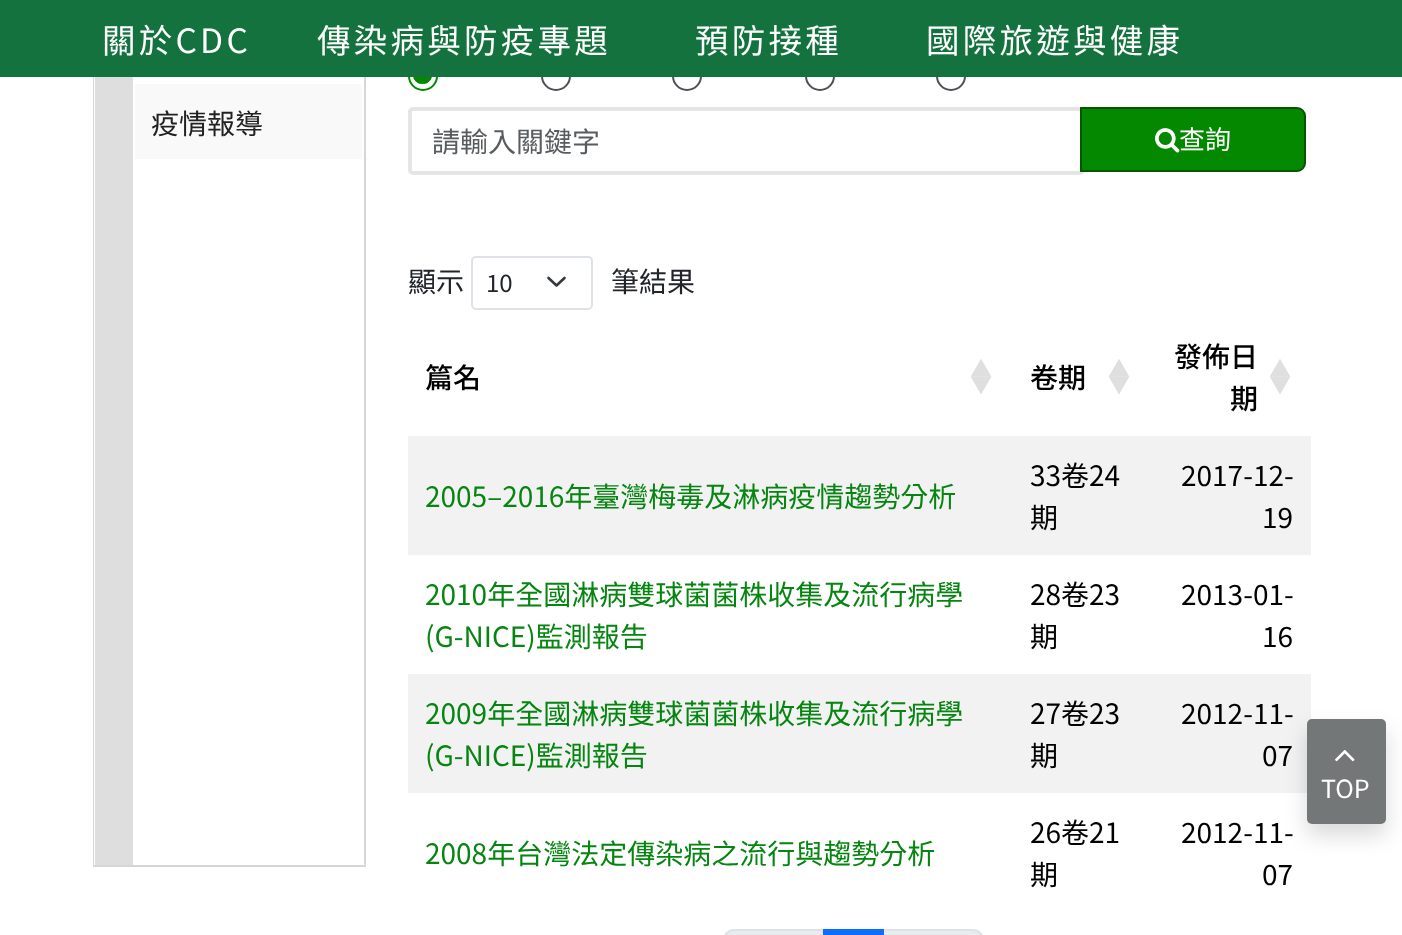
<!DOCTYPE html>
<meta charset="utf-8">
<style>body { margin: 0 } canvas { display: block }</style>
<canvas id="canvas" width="1402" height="935"></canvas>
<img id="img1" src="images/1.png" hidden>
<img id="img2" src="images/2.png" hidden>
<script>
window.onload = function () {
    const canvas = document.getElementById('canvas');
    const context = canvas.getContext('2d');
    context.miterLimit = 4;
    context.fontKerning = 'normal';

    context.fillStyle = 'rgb(255, 255, 255)';
    context.fillRect(0, 0, 1402, 935);
    context.fillStyle = 'rgb(215, 214, 213)';
    context.beginPath();
    context.moveTo(366, -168);
    context.lineTo(366, 866);
    context.lineTo(364, 864);
    context.lineTo(364, -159);
    context.closePath();
    context.fill();
    context.fillRect(93, 865, 273, 2);
    context.beginPath();
    context.moveTo(93, 866);
    context.lineTo(93, -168);
    context.lineTo(94, -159);
    context.lineTo(94, 864);
    context.closePath();
    context.fill();
    context.beginPath();
    context.arc(423, 76, 14, 0, 2 * Math.PI);
    context.strokeStyle = 'rgb(4, 136, 0)';
    context.lineWidth = 2;
    context.stroke();
    context.fillStyle = 'rgb(4, 136, 0)';
    context.beginPath();
    context.roundRect(413.5, 67.5, 18, 16, 8);
    context.fill();
    context.lineWidth = 1;
    context.stroke();
    context.beginPath();
    context.arc(556, 76, 14, 0, 2 * Math.PI);
    context.strokeStyle = 'rgb(77, 80, 86)';
    context.lineWidth = 2;
    context.stroke();
    context.beginPath();
    context.arc(687, 76, 14, 0, 2 * Math.PI);
    context.stroke();
    context.beginPath();
    context.arc(820, 76, 14, 0, 2 * Math.PI);
    context.stroke();
    context.beginPath();
    context.arc(951, 76, 14, 0, 2 * Math.PI);
    context.stroke();
    context.fillStyle = 'rgb(20, 114, 62)';
    context.fillRect(0, 0, 1402, 77);
    context.fillStyle = 'rgb(222, 222, 222)';
    context.fillRect(95, 77, 38, 788);
    context.fillStyle = 'rgb(249, 249, 249)';
    context.fillRect(135, 84, 227, 75);
    context.beginPath();
    context.roundRect(410, 109, 673, 64, 3);
    context.strokeStyle = 'rgb(229, 229, 229)';
    context.lineWidth = 4;
    context.stroke();
    context.fillStyle = 'rgb(4, 136, 0)';
    context.beginPath();
    context.roundRect(1081, 108, 224, 63, [0, 8, 8, 0]);
    context.fill();
    context.strokeStyle = 'rgb(3, 85, 0)';
    context.lineWidth = 2;
    context.stroke();
    context.drawImage(document.getElementById('img1'), 1155, 128, 25, 25);
    context.beginPath();
    context.moveTo(548.5, 278);
    context.lineTo(556.5, 285.5);
    context.lineTo(564.5, 278);
    context.strokeStyle = 'rgb(52, 58, 64)';
    context.lineWidth = 2.6;
    context.lineCap = 'round';
    context.lineJoin = 'round';
    context.stroke();
    context.beginPath();
    context.roundRect(472, 257, 120, 52, 4);
    context.strokeStyle = 'rgb(222, 226, 230)';
    context.lineWidth = 2;
    context.lineJoin = 'miter';
    context.stroke();
    context.fillStyle = 'rgb(242, 242, 242)';
    context.fillRect(408, 436, 903, 119);
    context.fillRect(408, 674, 903, 119);
    context.fillStyle = 'rgb(233, 236, 239)';
    context.beginPath();
    context.moveTo(734, 930);
    context.lineTo(823, 930);
    context.lineTo(823, 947);
    context.lineTo(734, 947);
    context.bezierCurveTo(728.5, 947, 724, 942.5, 724, 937);
    context.lineTo(724, 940);
    context.bezierCurveTo(724, 934.5, 728.5, 930, 734, 930);
    context.closePath();
    context.fill();
    context.stroke();
    context.beginPath();
    context.moveTo(883, 930);
    context.lineTo(973, 930);
    context.bezierCurveTo(978.5, 930, 983, 934.5, 983, 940);
    context.lineTo(983, 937);
    context.bezierCurveTo(983, 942.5, 978.5, 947, 973, 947);
    context.lineTo(883, 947);
    context.closePath();
    context.fill();
    context.stroke();
    context.fillStyle = 'rgb(13, 110, 253)';
    context.fillRect(823, 929, 61, 6);
    context.fillStyle = 'rgba(0, 0, 0, 0.15)';
    context.filter = 'blur(10.5px)';
    context.beginPath();
    context.roundRect(1307, 730, 79, 105, 5);
    context.fill();
    context.filter = 'none';
    context.fillStyle = 'rgb(116, 119, 120)';
    context.beginPath();
    context.roundRect(1307, 719, 79, 105, 5);
    context.fill();
    context.drawImage(document.getElementById('img2'), 1335, 749, 20, 13);
    context.letterSpacing = '3.25px';
    context.font = '33.5px Noto Sans TC';
    context.fillStyle = 'rgb(255, 255, 255)';
    context.fillText('關於CDC', 102, 53);
    context.fillText('傳染病與防疫專題', 317, 53);
    context.fillText('預防接種', 695, 53);
    context.fillText('國際旅遊與健康', 926, 53);
    context.letterSpacing = '0px';
    context.font = '28px Noto Sans TC';
    context.fillStyle = 'rgb(34, 34, 34)';
    context.fillText('疫情報導', 151, 134);
    context.fillStyle = 'rgb(89, 92, 95)';
    context.fillText('請輸入關鍵字', 432, 152);
    context.font = '26px Noto Sans TC';
    context.fillStyle = 'rgb(255, 255, 255)';
    context.fillText('查詢', 1179, 149);
    context.font = '28px Noto Sans TC';
    context.fillStyle = 'rgb(33, 37, 41)';
    context.fillText('顯示', 408, 292);
    context.font = '24px Noto Sans TC';
    context.fillText('10', 486, 292);
    context.font = '28px Noto Sans TC';
    context.fillText('筆結果', 611, 292);
    context.font = '500 28px Noto Sans TC';
    context.fillStyle = 'rgb(0, 0, 0)';
    context.fillText('篇名', 425, 388);
    context.font = '500 22px Noto Sans TC';
    context.fillStyle = 'rgb(223, 223, 223)';
    context.fillText('▲', 970, 377);
    context.fillText('▼', 970, 393);
    context.font = '500 28px Noto Sans TC';
    context.fillStyle = 'rgb(0, 0, 0)';
    context.fillText('卷期', 1030, 388);
    context.font = '500 22px Noto Sans TC';
    context.fillStyle = 'rgb(223, 223, 223)';
    context.fillText('▲', 1108, 377);
    context.fillText('▼', 1108, 393);
    context.font = '500 28px Noto Sans TC';
    context.fillStyle = 'rgb(0, 0, 0)';
    context.fillText('發佈日', 1174, 367);
    context.font = '500 22px Noto Sans TC';
    context.fillStyle = 'rgb(223, 223, 223)';
    context.fillText('▲', 1269, 377);
    context.fillText('▼', 1269, 393);
    context.font = '500 28px Noto Sans TC';
    context.fillStyle = 'rgb(0, 0, 0)';
    context.fillText('期', 1230, 409);
    context.font = '28px Noto Sans TC';
    context.fillStyle = 'rgb(6, 133, 17)';
    context.fillText('2005–2016年臺灣梅毒及淋病疫情趨勢分析', 425, 507);
    context.fillStyle = 'rgb(0, 0, 0)';
    context.fillText('33卷24', 1030, 486);
    context.fillText('期', 1030, 528);
    context.fillText('2017-12-', 1181, 486);
    context.fillText('19', 1262, 528);
    context.fillStyle = 'rgb(6, 133, 17)';
    context.fillText('2010年全國淋病雙球菌菌株收集及流行病學', 425, 605);
    context.fillText('(G-NICE)監測報告', 425, 647);
    context.fillStyle = 'rgb(0, 0, 0)';
    context.fillText('28卷23', 1030, 605);
    context.fillText('期', 1030, 647);
    context.fillText('2013-01-', 1181, 605);
    context.fillText('16', 1262, 647);
    context.fillStyle = 'rgb(6, 133, 17)';
    context.fillText('2009年全國淋病雙球菌菌株收集及流行病學', 425, 724);
    context.fillText('(G-NICE)監測報告', 425, 766);
    context.fillStyle = 'rgb(0, 0, 0)';
    context.fillText('27卷23', 1030, 724);
    context.fillText('期', 1030, 766);
    context.fillText('2012-11-', 1181, 724);
    context.fillText('07', 1262, 766);
    context.fillStyle = 'rgb(6, 133, 17)';
    context.fillText('2008年台灣法定傳染病之流行與趨勢分析', 425, 864);
    context.fillStyle = 'rgb(0, 0, 0)';
    context.fillText('26卷21', 1030, 843);
    context.fillText('期', 1030, 885);
    context.fillText('2012-11-', 1181, 843);
    context.fillText('07', 1262, 885);
    context.font = '25px Noto Sans TC';
    context.fillStyle = 'rgb(255, 255, 255)';
    context.fillText('TOP', 1321, 798);
};
</script>
